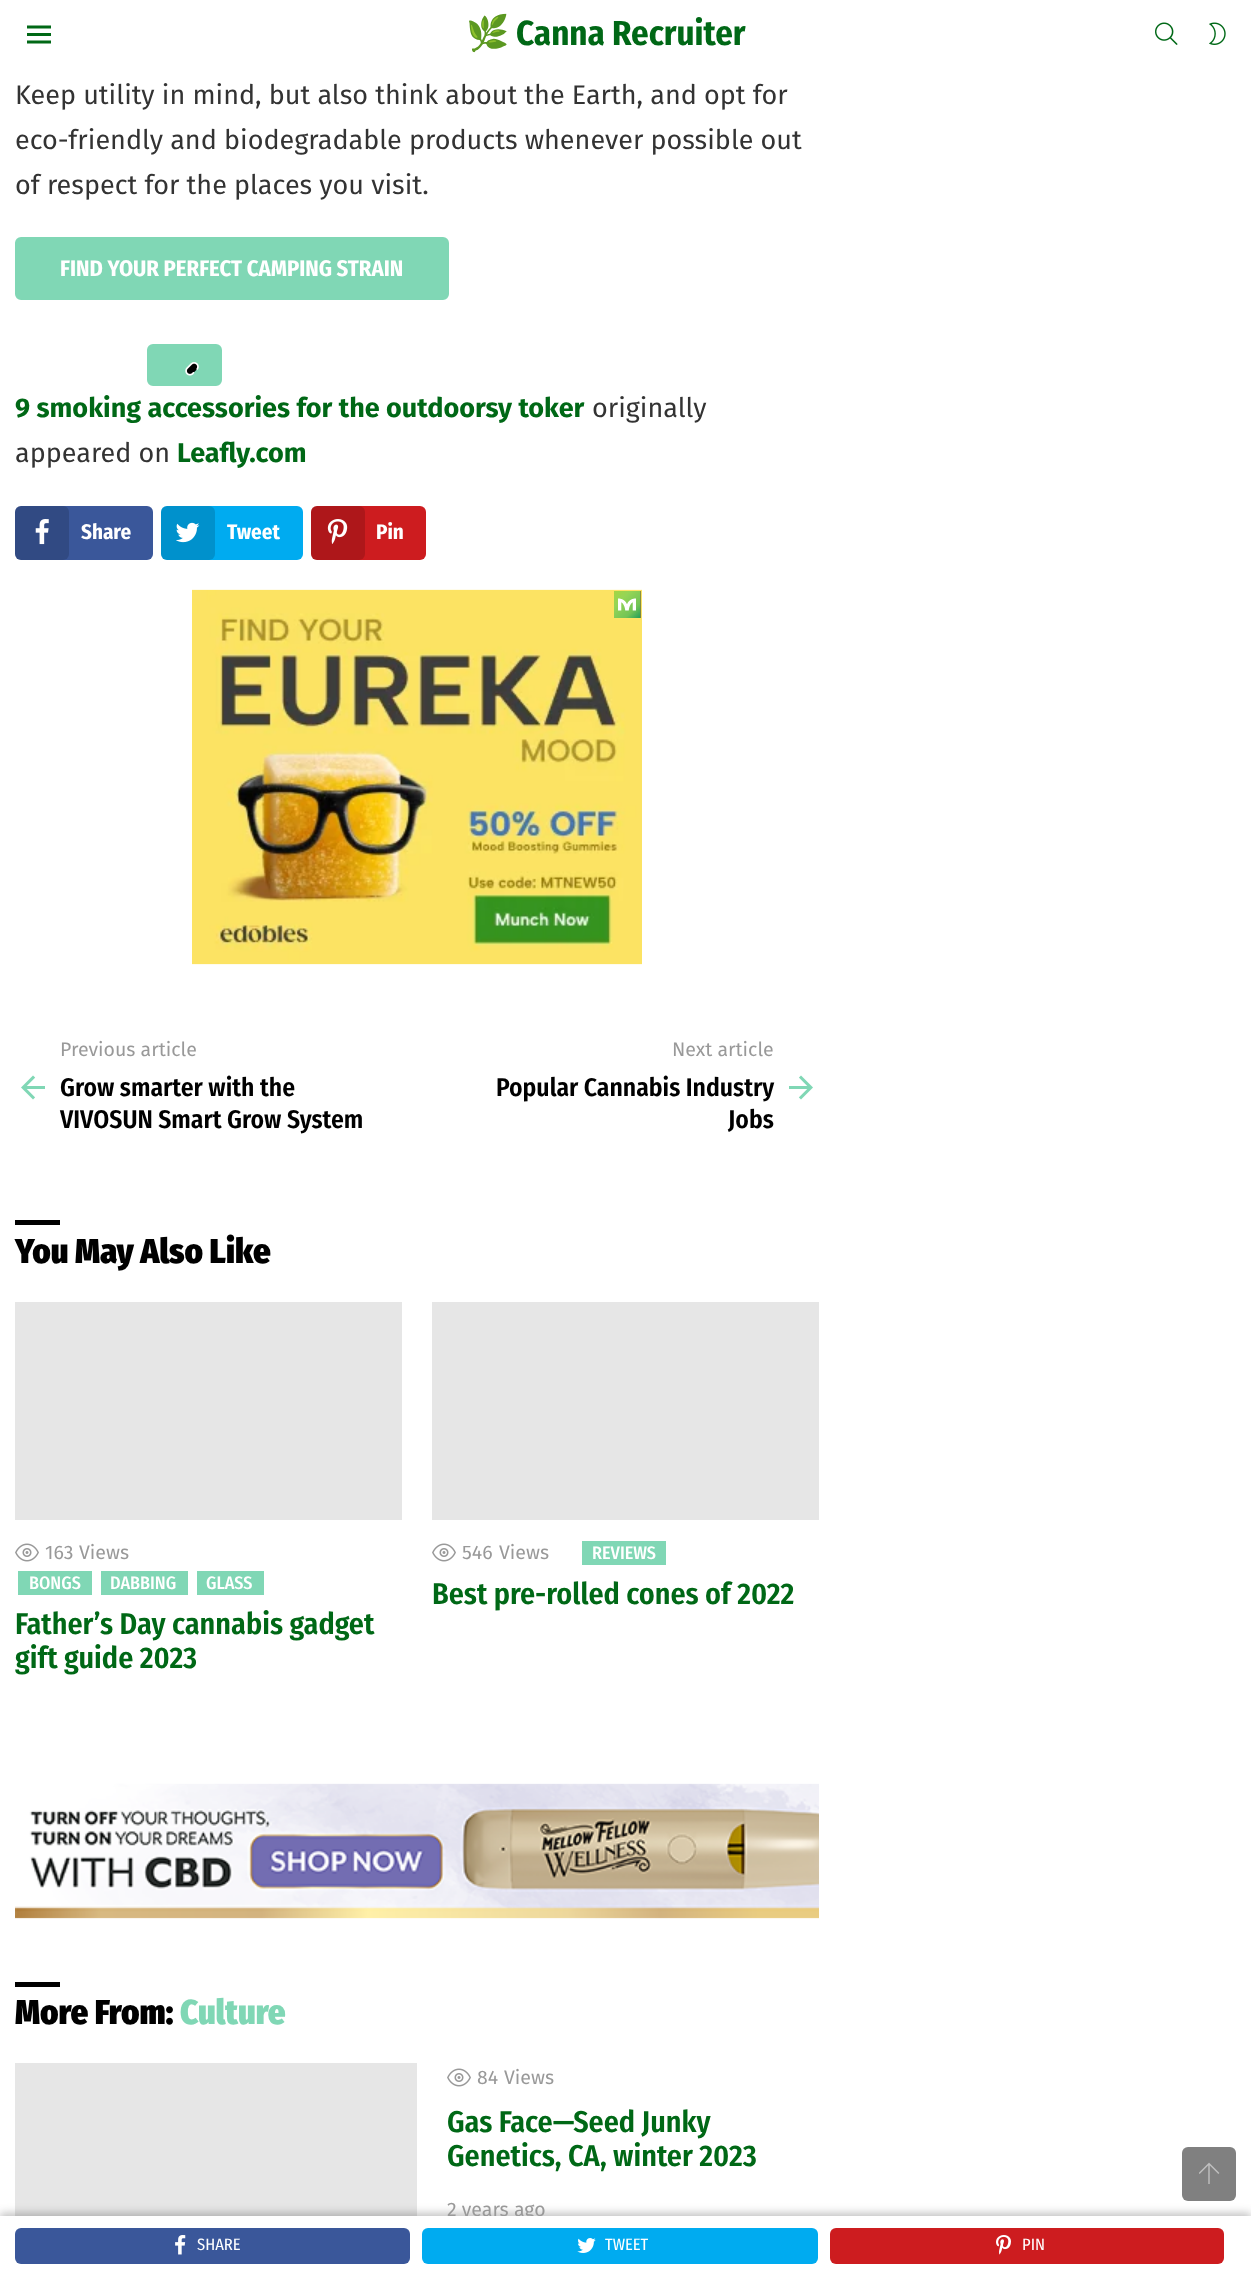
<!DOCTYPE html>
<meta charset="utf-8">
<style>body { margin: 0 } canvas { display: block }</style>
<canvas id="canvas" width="1251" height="2275"></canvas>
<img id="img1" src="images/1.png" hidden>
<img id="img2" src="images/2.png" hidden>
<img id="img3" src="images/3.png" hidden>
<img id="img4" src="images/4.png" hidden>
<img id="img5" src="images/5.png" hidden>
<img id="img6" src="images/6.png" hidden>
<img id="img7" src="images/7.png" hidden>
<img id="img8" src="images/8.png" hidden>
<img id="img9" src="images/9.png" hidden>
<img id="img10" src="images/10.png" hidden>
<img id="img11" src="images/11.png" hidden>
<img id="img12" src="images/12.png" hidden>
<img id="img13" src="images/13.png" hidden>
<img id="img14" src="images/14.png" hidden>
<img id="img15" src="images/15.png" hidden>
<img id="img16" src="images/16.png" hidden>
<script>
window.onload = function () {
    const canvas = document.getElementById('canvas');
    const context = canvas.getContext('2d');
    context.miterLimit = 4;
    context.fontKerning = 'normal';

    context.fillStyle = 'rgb(255, 255, 255)';
    context.fillRect(0, 0, 1251, 2275);
    context.drawImage(document.getElementById('img1'), 27, 25, 24, 19);
    context.drawImage(document.getElementById('img2'), 1155, 22, 23, 23);
    context.drawImage(document.getElementById('img3'), 1209, 22, 17, 23);
    context.fillStyle = 'rgb(128, 215, 181)';
    context.beginPath();
    context.roundRect(16.5, 238.5, 431, 60, 4.5);
    context.fill();
    context.strokeStyle = 'rgb(128, 215, 181)';
    context.lineWidth = 3;
    context.stroke();
    context.beginPath();
    context.roundRect(148.5, 345.5, 72, 39, 4.5);
    context.fill();
    context.stroke();
    context.drawImage(document.getElementById('img4'), 185, 362, 14, 14);
    context.fillStyle = 'rgb(58, 87, 154)';
    context.beginPath();
    context.roundRect(15, 506, 138, 54, 6);
    context.fill();
    context.fillStyle = 'rgba(0, 0, 0, 0.15)';
    context.beginPath();
    context.roundRect(15, 506, 54, 54, 6);
    context.fill();
    context.drawImage(document.getElementById('img5'), 35, 519, 14, 26);
    context.fillStyle = 'rgb(0, 171, 240)';
    context.beginPath();
    context.roundRect(161, 506, 142, 54, 6);
    context.fill();
    context.fillStyle = 'rgba(0, 0, 0, 0.15)';
    context.beginPath();
    context.roundRect(161, 506, 54, 54, 6);
    context.fill();
    context.drawImage(document.getElementById('img6'), 176, 522, 24, 21);
    context.fillStyle = 'rgb(205, 28, 31)';
    context.beginPath();
    context.roundRect(311, 506, 115, 54, 6);
    context.fill();
    context.fillStyle = 'rgba(0, 0, 0, 0.15)';
    context.beginPath();
    context.roundRect(311, 506, 54, 54, 6);
    context.fill();
    context.drawImage(document.getElementById('img7'), 327, 519, 21, 25);
    context.drawImage(document.getElementById('img8'), 192, 589, 450, 376);
    context.drawImage(document.getElementById('img9'), 21, 1075, 24, 25);
    context.drawImage(document.getElementById('img10'), 789, 1075, 24, 25);
    context.fillStyle = 'rgb(0, 0, 0)';
    context.fillRect(15, 1220, 45, 5);
    context.fillStyle = 'rgb(230, 230, 230)';
    context.fillRect(15, 1302, 387, 218);
    context.drawImage(document.getElementById('img11'), 15, 1543, 24, 19);
    context.fillStyle = 'rgb(128, 215, 181)';
    context.fillRect(18, 1571, 74, 24);
    context.fillRect(101, 1571, 87, 24);
    context.fillRect(197, 1571, 67, 24);
    context.fillStyle = 'rgb(230, 230, 230)';
    context.fillRect(432, 1302, 387, 218);
    context.drawImage(document.getElementById('img11'), 432, 1543, 24, 19);
    context.fillStyle = 'rgb(128, 215, 181)';
    context.fillRect(582, 1541, 84, 24);
    context.drawImage(document.getElementById('img12'), 15, 1783, 804, 136);
    context.fillStyle = 'rgb(0, 0, 0)';
    context.fillRect(15, 1982, 45, 5);
    context.fillStyle = 'rgb(230, 230, 230)';
    context.fillRect(15, 2063, 402, 153);
    context.drawImage(document.getElementById('img11'), 447, 2068, 24, 19);
    context.fillStyle = 'rgb(128, 128, 128)';
    context.beginPath();
    context.roundRect(1182, 2147, 54, 54, 6);
    context.fill();
    context.drawImage(document.getElementById('img13'), 1199, 2162, 21, 22);
    context.fillStyle = 'rgba(50, 50, 50, 0.3)';
    context.filter = 'blur(4px)';
    context.beginPath();
    context.rect(0, 2213, 1251, 60);
    context.fill();
    context.filter = 'none';
    context.font = 'bold 34.75px Noto Color Emoji';
    context.fillStyle = 'rgb(0, 104, 22)';
    context.fillText('🌿', 466, 45);
    context.font = 'bold 34.75px Fira Sans Condensed';
    context.fillText('Canna Recruiter', 516, 45);
    context.font = '27px Fira Sans';
    context.fillStyle = 'rgb(51, 51, 51)';
    context.fillText('Keep utility in mind, but also think about the Earth, and opt for', 15, 104);
    context.fillText('eco-friendly and biodegradable products whenever possible out', 15, 149);
    context.fillText('of respect for the places you visit.', 15, 194);
    context.font = 'bold 22.5px Fira Sans Condensed';
    context.fillStyle = 'rgb(255, 255, 255)';
    context.fillText('FIND YOUR PERFECT CAMPING STRAIN', 60, 276);
    context.font = 'bold 27px Fira Sans';
    context.fillStyle = 'rgb(0, 104, 22)';
    context.fillText('9 smoking accessories for the outdoorsy toker', 15, 417);
    context.font = '27px Fira Sans';
    context.fillStyle = 'rgb(51, 51, 51)';
    context.fillText('originally', 592, 417);
    context.fillText('appeared on', 15, 462);
    context.font = 'bold 27px Fira Sans';
    context.fillStyle = 'rgb(0, 104, 22)';
    context.fillText('Leafly.com', 177, 462);
    context.font = 'bold 21px Fira Sans Condensed';
    context.fillStyle = 'rgb(255, 255, 255)';
    context.fillText('Share', 81, 539);
    context.fillText('Tweet', 227, 539);
    context.fillText('Pin', 376, 539);
    context.font = '19.5px Fira Sans';
    context.fillStyle = 'rgb(153, 153, 153)';
    context.fillText('Previous article', 60, 1056);
    context.font = '600 25.5px Fira Sans Condensed';
    context.fillStyle = 'rgb(0, 0, 0)';
    context.fillText('Grow smarter with the', 60, 1096);
    context.fillText('VIVOSUN Smart Grow System', 60, 1128);
    context.font = '19.5px Fira Sans';
    context.fillStyle = 'rgb(153, 153, 153)';
    context.fillText('Next article', 672, 1056);
    context.font = '600 25.5px Fira Sans Condensed';
    context.fillStyle = 'rgb(0, 0, 0)';
    context.fillText('Popular Cannabis Industry', 496, 1096);
    context.fillText('Jobs', 728, 1128);
    context.font = '900 34.5px Fira Sans Condensed';
    context.fillText('You May Also Like', 15, 1263);
    context.font = '19.5px Fira Sans';
    context.fillStyle = 'rgb(153, 153, 153)';
    context.fillText('163', 45, 1559);
    context.fillText('Views', 79, 1559);
    context.font = '500 18px Fira Sans Condensed';
    context.fillStyle = 'rgb(255, 255, 255)';
    context.fillText('BONGS', 29, 1589);
    context.fillText('DABBING', 110, 1589);
    context.fillText('GLASS', 206, 1589);
    context.font = '600 30px Fira Sans Condensed';
    context.fillStyle = 'rgb(0, 104, 22)';
    context.fillText('Father’s Day cannabis gadget', 15, 1634);
    context.fillText('gift guide 2023', 15, 1668);
    context.font = '19.5px Fira Sans';
    context.fillStyle = 'rgb(153, 153, 153)';
    context.fillText('546', 462, 1559);
    context.fillText('Views', 499, 1559);
    context.font = '500 18px Fira Sans Condensed';
    context.fillStyle = 'rgb(255, 255, 255)';
    context.fillText('REVIEWS', 592, 1559);
    context.font = '600 30px Fira Sans Condensed';
    context.fillStyle = 'rgb(0, 104, 22)';
    context.fillText('Best pre-rolled cones of 2022', 432, 1604);
    context.font = '900 34.5px Fira Sans Condensed';
    context.fillStyle = 'rgb(0, 0, 0)';
    context.fillText('More From:', 15, 2024);
    context.fillStyle = 'rgb(128, 215, 181)';
    context.fillText('Culture', 180, 2024);
    context.font = '19.5px Fira Sans';
    context.fillStyle = 'rgb(153, 153, 153)';
    context.fillText('84', 477, 2084);
    context.fillText('Views', 504, 2084);
    context.font = '600 30px Fira Sans Condensed';
    context.fillStyle = 'rgb(0, 104, 22)';
    context.fillText('Gas Face—Seed Junky', 447, 2132);
    context.fillText('Genetics, CA, winter 2023', 447, 2166);
    context.font = '19.5px Fira Sans';
    context.fillStyle = 'rgb(153, 153, 153)';
    context.fillText('2 years ago', 447, 2216);
    context.fillStyle = 'rgb(255, 255, 255)';
    context.fillRect(0, 2216, 1251, 59);
    context.fillStyle = 'rgb(58, 87, 154)';
    context.beginPath();
    context.roundRect(15, 2228, 395, 36, 6);
    context.fill();
    context.drawImage(document.getElementById('img14'), 175, 2235, 11, 20);
    context.font = '16.5px Fira Sans Condensed';
    context.fillStyle = 'rgb(255, 255, 255)';
    context.fillText('SHARE', 197, 2250);
    context.fillStyle = 'rgb(0, 171, 240)';
    context.beginPath();
    context.roundRect(422, 2228, 396, 36, 6);
    context.fill();
    context.drawImage(document.getElementById('img15'), 577, 2238, 19, 15);
    context.fillStyle = 'rgb(255, 255, 255)';
    context.fillText('TWEET', 605, 2250);
    context.fillStyle = 'rgb(205, 28, 31)';
    context.beginPath();
    context.roundRect(830, 2228, 394, 36, 6);
    context.fill();
    context.drawImage(document.getElementById('img16'), 996, 2235, 15, 20);
    context.fillStyle = 'rgb(255, 255, 255)';
    context.fillText('PIN', 1022, 2250);
};
</script>
